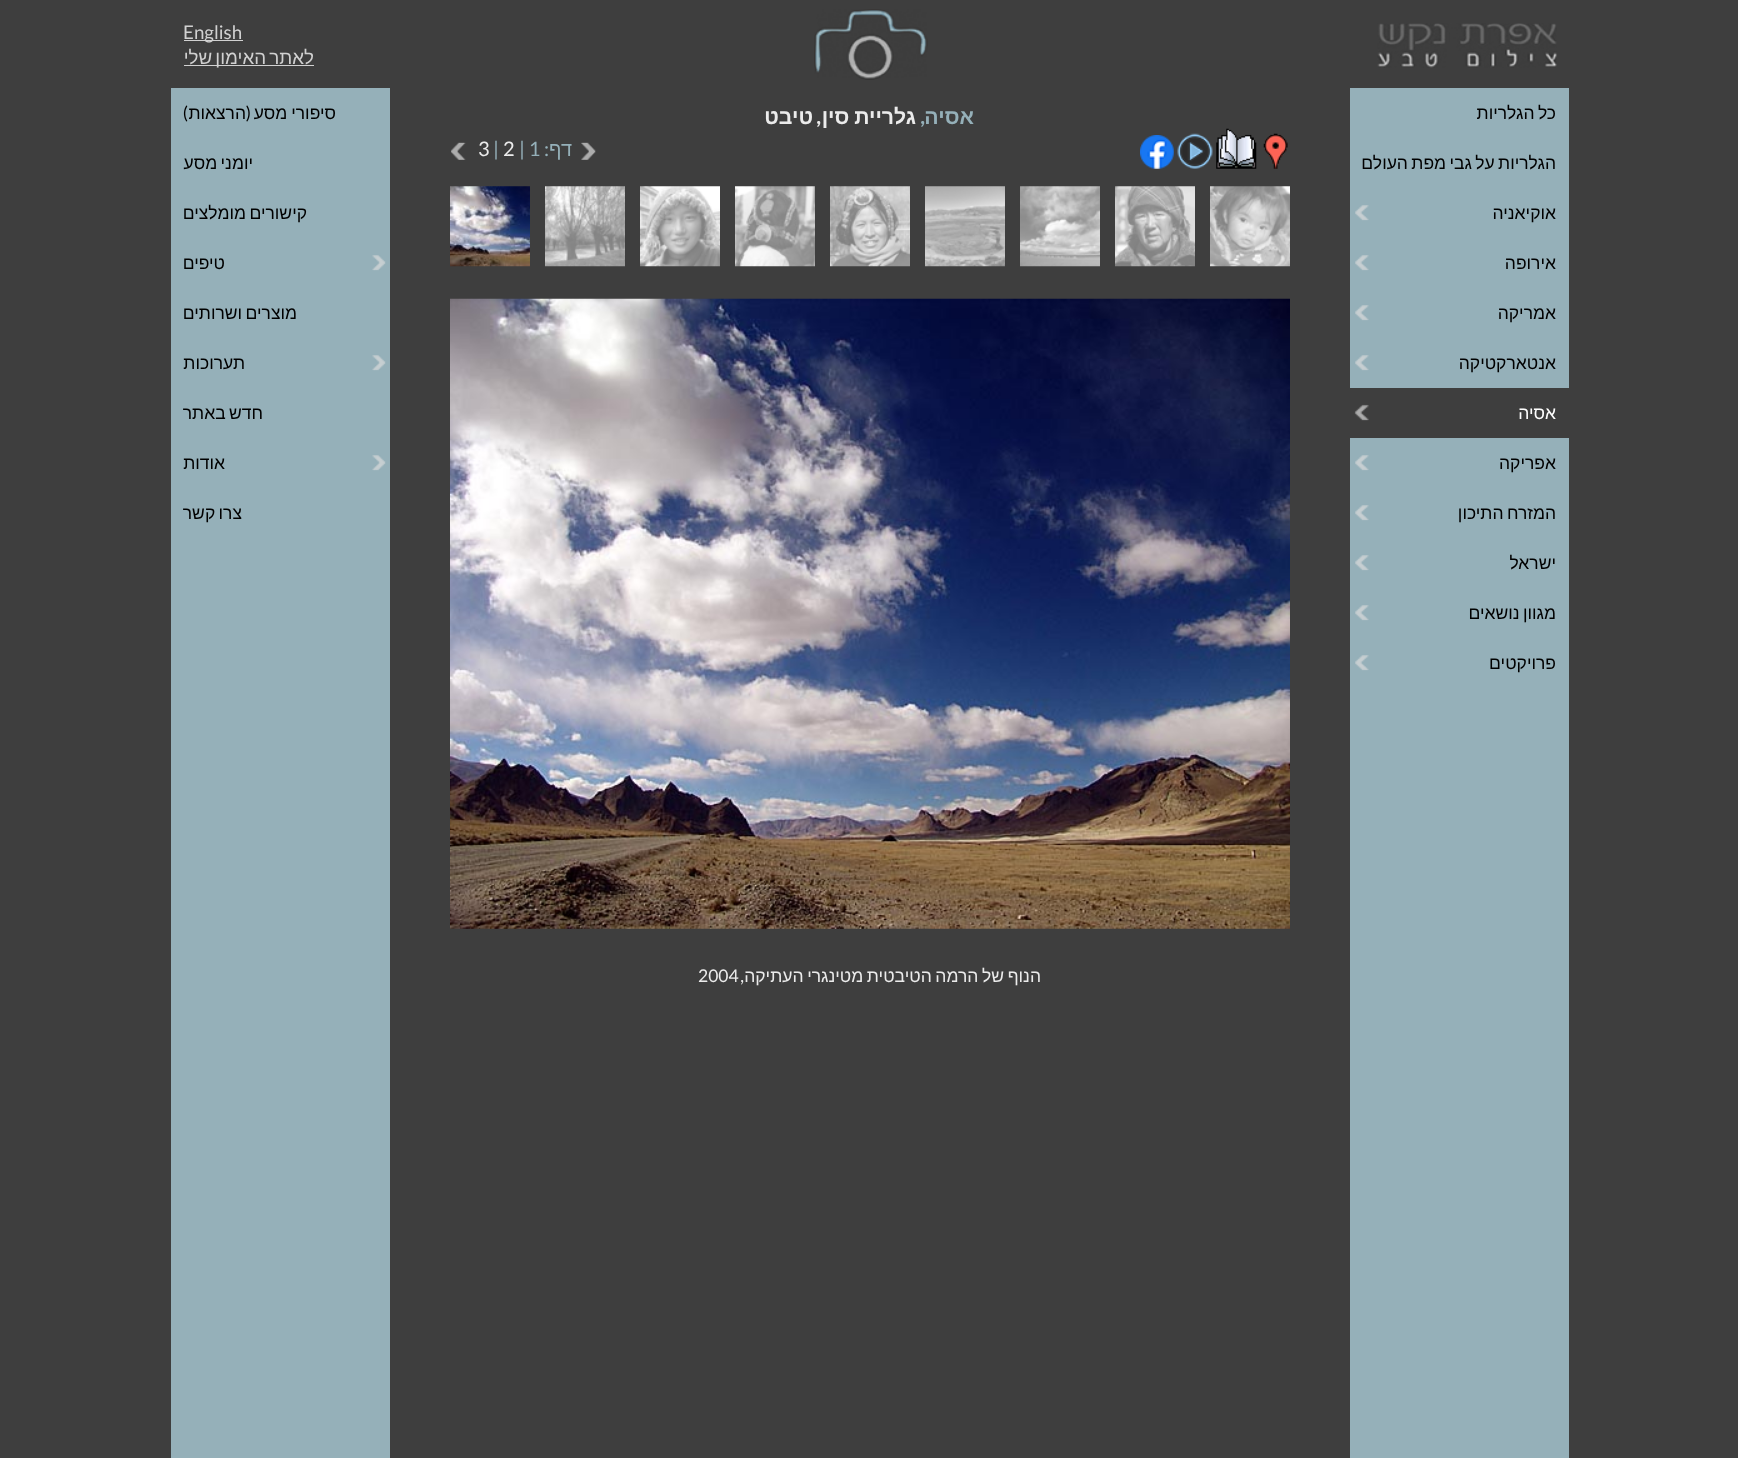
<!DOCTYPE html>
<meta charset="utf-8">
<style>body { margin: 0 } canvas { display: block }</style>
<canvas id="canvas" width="1738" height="1458"></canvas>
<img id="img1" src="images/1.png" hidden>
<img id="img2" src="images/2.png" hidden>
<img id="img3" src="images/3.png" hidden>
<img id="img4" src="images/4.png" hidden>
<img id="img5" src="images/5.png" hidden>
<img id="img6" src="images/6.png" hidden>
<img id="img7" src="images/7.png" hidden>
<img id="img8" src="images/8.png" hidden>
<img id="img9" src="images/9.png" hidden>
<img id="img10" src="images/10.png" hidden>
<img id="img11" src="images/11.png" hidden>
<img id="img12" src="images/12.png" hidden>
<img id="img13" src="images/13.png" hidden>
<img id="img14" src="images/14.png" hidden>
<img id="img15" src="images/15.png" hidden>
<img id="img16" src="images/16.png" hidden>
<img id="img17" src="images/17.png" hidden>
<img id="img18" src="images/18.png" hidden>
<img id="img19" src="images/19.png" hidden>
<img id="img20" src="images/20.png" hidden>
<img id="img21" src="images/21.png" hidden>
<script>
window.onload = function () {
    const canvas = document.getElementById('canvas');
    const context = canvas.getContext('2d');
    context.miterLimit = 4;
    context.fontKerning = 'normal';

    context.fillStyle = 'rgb(62, 62, 62)';
    context.fillRect(0, 0, 1738, 1458);
    context.drawImage(document.getElementById('img1'), 814, 9, 114, 71);
    context.drawImage(document.getElementById('img2'), 1377, 23, 180, 45);
    context.fillStyle = 'rgb(209, 209, 209)';
    context.fillRect(184, 40, 59, 1);
    context.fillRect(184, 65, 130, 1);
    context.fillStyle = 'rgb(149, 176, 185)';
    context.fillRect(1350, 88, 219, 1370);
    context.drawImage(document.getElementById('img3'), 1355, 205, 14, 16);
    context.drawImage(document.getElementById('img3'), 1355, 255, 14, 16);
    context.drawImage(document.getElementById('img3'), 1355, 305, 14, 16);
    context.drawImage(document.getElementById('img3'), 1355, 355, 14, 16);
    context.fillStyle = 'rgb(62, 62, 62)';
    context.fillRect(1350, 388, 219, 50);
    context.drawImage(document.getElementById('img4'), 1354, 404, 15, 17);
    context.drawImage(document.getElementById('img3'), 1355, 455, 14, 16);
    context.drawImage(document.getElementById('img3'), 1355, 505, 14, 16);
    context.drawImage(document.getElementById('img3'), 1355, 555, 14, 16);
    context.drawImage(document.getElementById('img3'), 1355, 605, 14, 16);
    context.drawImage(document.getElementById('img3'), 1355, 655, 14, 16);
    context.fillStyle = 'rgb(149, 176, 185)';
    context.fillRect(171, 88, 219, 1370);
    context.drawImage(document.getElementById('img5'), 372, 255, 14, 16);
    context.drawImage(document.getElementById('img5'), 372, 355, 14, 16);
    context.drawImage(document.getElementById('img5'), 372, 455, 14, 16);
    context.drawImage(document.getElementById('img6'), 1263, 133, 25, 36);
    context.drawImage(document.getElementById('img7'), 1216, 128, 41, 41);
    context.drawImage(document.getElementById('img8'), 1177, 133, 36, 36);
    context.drawImage(document.getElementById('img9'), 1140, 135, 34, 34);
    context.drawImage(document.getElementById('img10'), 581, 142, 15, 18);
    context.drawImage(document.getElementById('img11'), 451, 142, 15, 18);
    context.drawImage(document.getElementById('img12'), 1210, 186, 80, 81);
    context.drawImage(document.getElementById('img13'), 1115, 186, 80, 81);
    context.drawImage(document.getElementById('img14'), 1020, 186, 80, 81);
    context.drawImage(document.getElementById('img15'), 925, 186, 80, 81);
    context.drawImage(document.getElementById('img16'), 830, 186, 80, 81);
    context.drawImage(document.getElementById('img17'), 735, 186, 80, 81);
    context.drawImage(document.getElementById('img18'), 640, 186, 80, 81);
    context.drawImage(document.getElementById('img19'), 545, 186, 80, 81);
    context.drawImage(document.getElementById('img20'), 450, 186, 80, 81);
    context.drawImage(document.getElementById('img21'), 450, 298, 840, 631);
    context.font = '18.75px Lato';
    context.fillStyle = 'rgb(209, 209, 209)';
    context.fillText('English', 183, 39);
    context.wordSpacing = '-2px';
    context.direction = 'rtl';
    context.font = '18.75px Liberation Sans';
    context.fillText('לאתר האימון שלי', 314, 64);
    context.wordSpacing = '-1.5px';
    context.font = '17.5px Liberation Sans';
    context.fillStyle = 'rgb(0, 0, 0)';
    context.fillText('כל הגלריות', 1556, 119);
    context.fillText('הגלריות על גבי מפת העולם', 1556, 169);
    context.wordSpacing = '0px';
    context.fillText('אוקיאניה', 1556, 219);
    context.fillText('אירופה', 1556, 269);
    context.fillText('אמריקה', 1556, 319);
    context.fillText('אנטארקטיקה', 1556, 369);
    context.fillStyle = 'rgb(255, 255, 255)';
    context.fillText('אסיה', 1556, 419);
    context.fillStyle = 'rgb(0, 0, 0)';
    context.fillText('אפריקה', 1556, 469);
    context.wordSpacing = '-1.5px';
    context.fillText('המזרח התיכון', 1556, 519);
    context.wordSpacing = '0px';
    context.fillText('ישראל', 1556, 569);
    context.wordSpacing = '-1.5px';
    context.fillText('מגוון נושאים', 1556, 619);
    context.wordSpacing = '0px';
    context.fillText('פרויקטים', 1556, 669);
    context.wordSpacing = '-1px';
    context.fillText('סיפורי מסע', 336, 119);
    context.wordSpacing = '0px';
    context.font = '17.5px Lato';
    context.fillText('(', 251, 119);
    context.font = '17.5px Liberation Sans';
    context.fillText('הרצאות', 246, 119);
    context.font = '17.5px Lato';
    context.fillText(')', 188, 119);
    context.wordSpacing = '-1.5px';
    context.font = '17.5px Liberation Sans';
    context.fillText('יומני מסע', 253, 169);
    context.fillText('קישורים מומלצים', 307, 219);
    context.wordSpacing = '0px';
    context.fillText('טיפים', 225, 269);
    context.wordSpacing = '-1.5px';
    context.fillText('מוצרים ושרותים', 297, 319);
    context.wordSpacing = '0px';
    context.fillText('תערוכות', 245, 369);
    context.wordSpacing = '-1.5px';
    context.fillText('חדש באתר', 263, 419);
    context.wordSpacing = '0px';
    context.fillText('אודות', 225, 469);
    context.wordSpacing = '-1.5px';
    context.fillText('צרו קשר', 242, 519);
    context.wordSpacing = '0px';
    context.font = 'bold 21.25px Liberation Sans';
    context.fillStyle = 'rgb(149, 176, 185)';
    context.fillText('אסיה', 974, 124);
    context.font = 'bold 21.25px Lato';
    context.fillText(',', 925, 124);
    context.wordSpacing = '-1px';
    context.font = 'bold 21.25px Liberation Sans';
    context.fillStyle = 'rgb(235, 235, 235)';
    context.fillText('גלריית סין', 916, 124);
    context.wordSpacing = '0px';
    context.font = 'bold 21.25px Lato';
    context.fillText(',', 821, 124);
    context.font = 'bold 21.25px Liberation Sans';
    context.fillText('טיבט', 813, 124);
    context.font = '20px Liberation Sans';
    context.fillStyle = 'rgb(149, 176, 185)';
    context.fillText('דף', 572, 156);
    context.font = '20px Lato';
    context.fillText(':', 549, 156);
    context.direction = 'ltr';
    context.fillText('| 1', 519, 156);
    context.fillStyle = 'rgb(235, 235, 235)';
    context.fillText('2', 503, 156);
    context.fillStyle = 'rgb(149, 176, 185)';
    context.fillText('|', 493, 156);
    context.fillStyle = 'rgb(235, 235, 235)';
    context.fillText('3', 478, 156);
    context.wordSpacing = '-1.25px';
    context.direction = 'rtl';
    context.font = '17.5px Liberation Sans';
    context.fillText('הנוף של הרמה הטיבטית מטינגרי העתיקה', 1041, 982);
    context.wordSpacing = '0px';
    context.font = '17.5px Lato';
    context.fillText(',', 744, 982);
    context.direction = 'ltr';
    context.fillText('2004', 698, 982);
};
</script>
